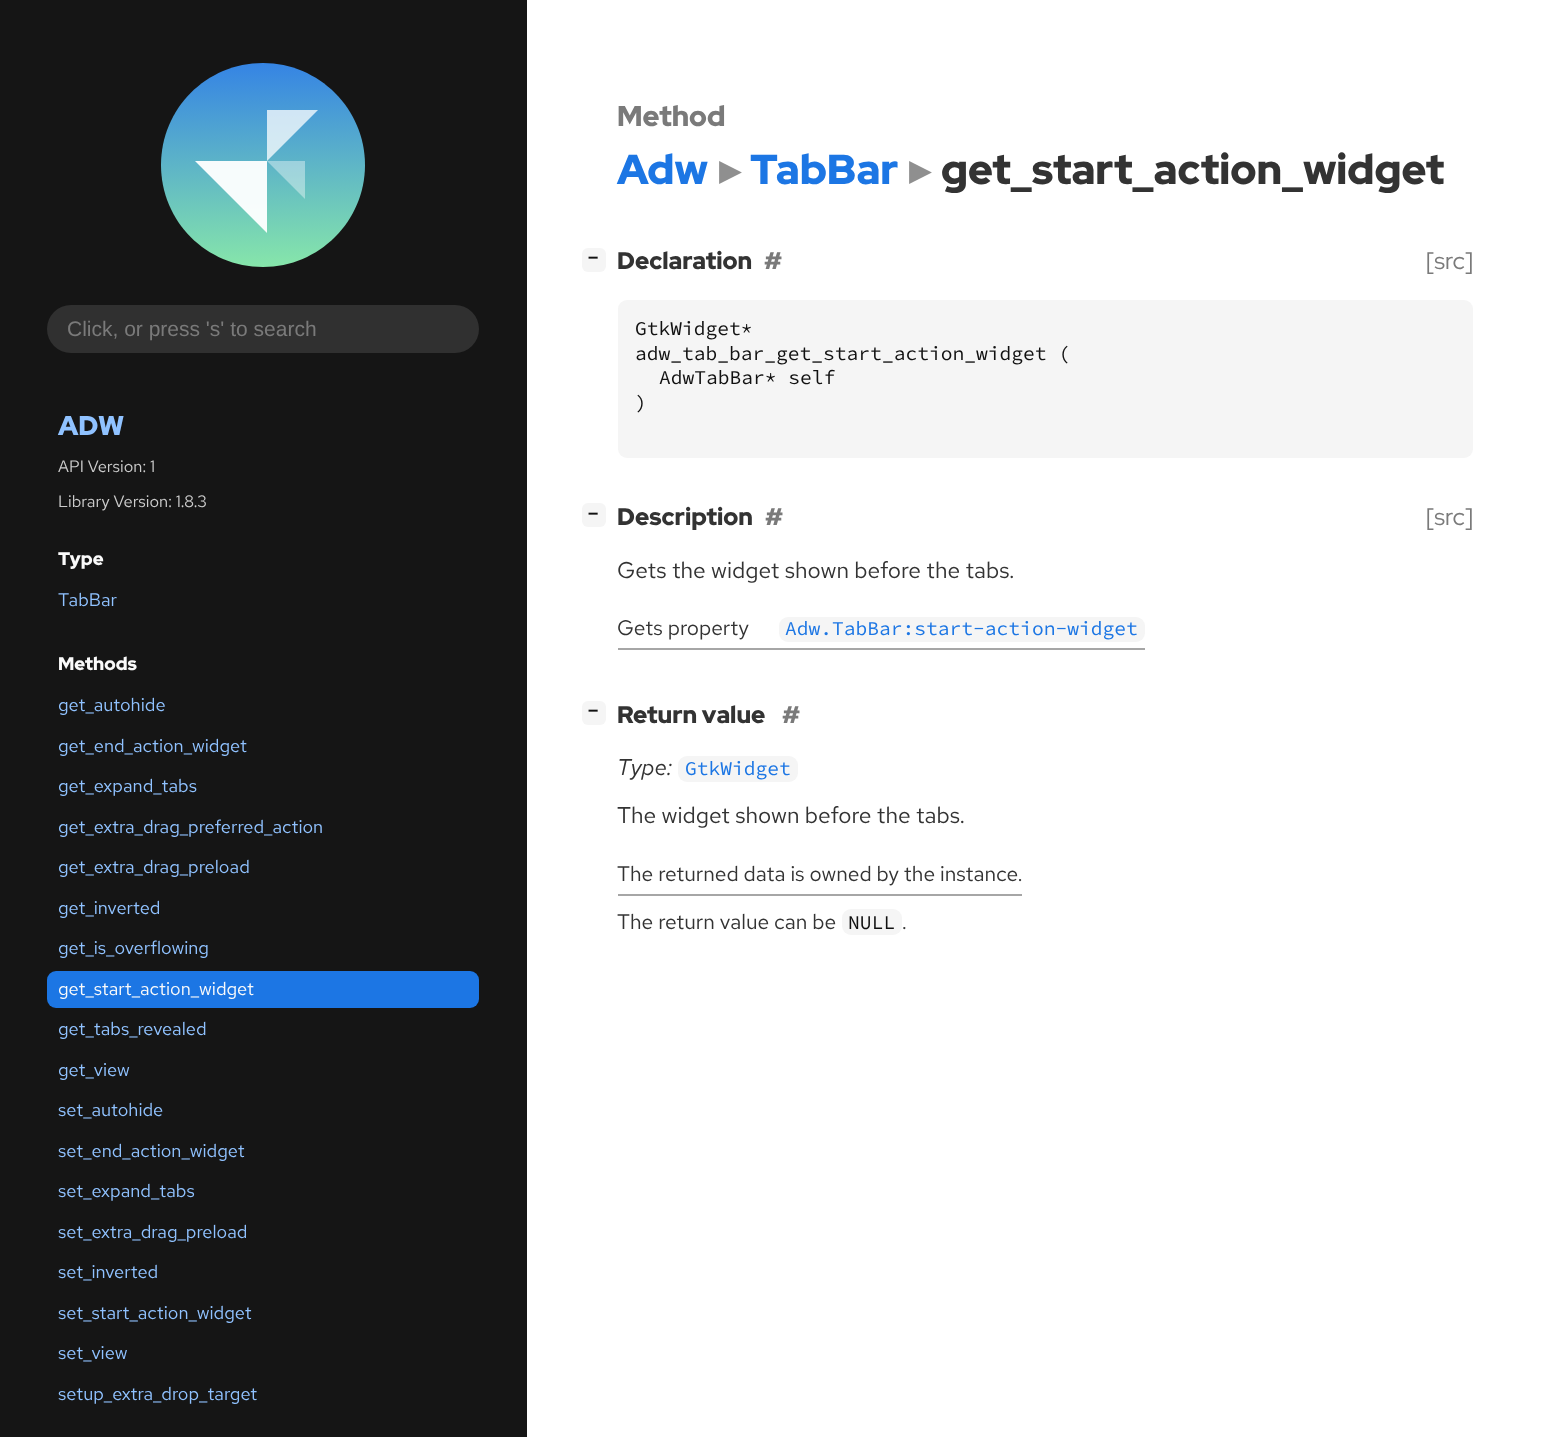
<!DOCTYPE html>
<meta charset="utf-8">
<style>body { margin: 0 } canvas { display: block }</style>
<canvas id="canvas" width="1564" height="1437"></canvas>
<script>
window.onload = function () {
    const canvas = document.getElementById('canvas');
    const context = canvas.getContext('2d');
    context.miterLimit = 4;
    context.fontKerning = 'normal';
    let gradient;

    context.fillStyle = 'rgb(255, 255, 255)';
    context.fillRect(0, 0, 1564, 1437);
    context.fillStyle = 'rgb(21, 21, 21)';
    context.fillRect(0, 0, 527, 1437);
    gradient = context.createLinearGradient(267, 288, 263, 63);
    gradient.addColorStop(0, 'rgb(143, 240, 164)');
    gradient.addColorStop(1, 'rgb(53, 132, 228)');
    context.fillStyle = gradient;
    context.beginPath();
    context.moveTo(161, 165);
    context.bezierCurveTo(161, 109, 206, 63, 263, 63);
    context.bezierCurveTo(319, 63, 365, 109, 365, 165);
    context.bezierCurveTo(365, 221, 319, 267, 263, 267);
    context.bezierCurveTo(206, 267, 161, 221, 161, 165);
    context.closePath();
    context.fill();
    context.fillStyle = 'rgba(255, 255, 255, 0.95)';
    context.beginPath();
    context.moveTo(195, 161);
    context.lineTo(267, 161);
    context.lineTo(267, 233);
    context.closePath();
    context.fill();
    context.fillStyle = 'rgba(255, 255, 255, 0.75)';
    context.beginPath();
    context.moveTo(318, 110);
    context.lineTo(267, 110);
    context.lineTo(267, 161);
    context.closePath();
    context.fill();
    context.fillStyle = 'rgba(255, 255, 255, 0.4)';
    context.beginPath();
    context.moveTo(267, 161);
    context.lineTo(305, 161);
    context.lineTo(305, 199);
    context.closePath();
    context.fill();
    context.fillStyle = 'rgb(48, 48, 48)';
    context.beginPath();
    context.roundRect(47, 305, 432, 48, 24);
    context.fill();
    context.fillStyle = 'rgb(28, 118, 228)';
    context.beginPath();
    context.roundRect(47, 971, 432, 37, 9);
    context.fill();
    context.fillStyle = 'rgb(245, 245, 245)';
    context.beginPath();
    context.roundRect(582, 248, 24, 24, 6);
    context.fill();
    context.beginPath();
    context.roundRect(618, 300, 855, 158, 9);
    context.fill();
    context.beginPath();
    context.roundRect(582, 503, 24, 24, 6);
    context.fill();
    context.fillStyle = 'rgb(166, 166, 166)';
    context.fillRect(618, 648, 527, 2);
    context.fillStyle = 'rgb(245, 245, 245)';
    context.beginPath();
    context.roundRect(779, 617, 366, 25, 9);
    context.fill();
    context.beginPath();
    context.roundRect(582, 701, 24, 24, 6);
    context.fill();
    context.beginPath();
    context.roundRect(678, 756, 120, 26, 9);
    context.fill();
    context.fillStyle = 'rgb(166, 166, 166)';
    context.fillRect(618, 894, 404, 2);
    context.fillStyle = 'rgb(245, 245, 245)';
    context.beginPath();
    context.roundRect(842, 909, 60, 26, 9);
    context.fill();
    context.font = '21px Liberation Sans';
    context.fillStyle = 'rgb(122, 122, 122)';
    context.fillText('Click, or press \'s\' to search', 67, 336);
    context.font = '900 27px Red Hat Display';
    context.fillStyle = 'rgb(144, 194, 255)';
    context.fillText('ADW', 58, 435);
    context.font = '16.5px Red Hat Text';
    context.fillStyle = 'rgb(204, 204, 204)';
    context.fillText('API Version: 1', 58, 472);
    context.fillText('Library Version: 1.8.3', 58, 507);
    context.font = '900 18.25px Red Hat Display';
    context.fillStyle = 'rgb(250, 250, 250)';
    context.fillText('Type', 58, 565);
    context.font = '18.25px Red Hat Text';
    context.fillStyle = 'rgb(144, 194, 255)';
    context.fillText('TabBar', 58, 606);
    context.font = '900 18.25px Red Hat Display';
    context.fillStyle = 'rgb(250, 250, 250)';
    context.fillText('Methods', 58, 670);
    context.font = '18.25px Red Hat Text';
    context.fillStyle = 'rgb(144, 194, 255)';
    context.fillText('get_autohide', 58, 711);
    context.fillText('get_end_action_widget', 58, 752);
    context.fillText('get_expand_tabs', 58, 792);
    context.fillText('get_extra_drag_preferred_action', 58, 833);
    context.fillText('get_extra_drag_preload', 58, 873);
    context.fillText('get_inverted', 58, 914);
    context.fillText('get_is_overflowing', 58, 954);
    context.fillStyle = 'rgb(250, 250, 250)';
    context.fillText('get_start_action_widget', 58, 995);
    context.fillStyle = 'rgb(144, 194, 255)';
    context.fillText('get_tabs_revealed', 58, 1035);
    context.fillText('get_view', 58, 1076);
    context.fillText('set_autohide', 58, 1116);
    context.fillText('set_end_action_widget', 58, 1157);
    context.fillText('set_expand_tabs', 58, 1197);
    context.fillText('set_extra_drag_preload', 58, 1238);
    context.fillText('set_inverted', 58, 1278);
    context.fillText('set_start_action_widget', 58, 1319);
    context.fillText('set_view', 58, 1359);
    context.fillText('setup_extra_drop_target', 58, 1400);
    context.font = '900 28.5px Red Hat Display';
    context.fillStyle = 'rgb(122, 122, 122)';
    context.fillText('Method', 617, 126);
    context.font = '900 41.9px Red Hat Display';
    context.fillStyle = 'rgb(28, 118, 228)';
    context.fillText('Adw', 617, 184);
    context.font = 'bold 41.9px DejaVu Sans';
    context.fillStyle = 'rgb(143, 143, 143)';
    context.fillText('▸', 719, 184);
    context.font = '900 41.9px Red Hat Display';
    context.fillStyle = 'rgb(28, 118, 228)';
    context.fillText('TabBar', 750, 184);
    context.font = 'bold 41.9px DejaVu Sans';
    context.fillStyle = 'rgb(143, 143, 143)';
    context.fillText('▸', 909, 184);
    context.font = '900 41.9px Red Hat Display';
    context.fillStyle = 'rgb(51, 51, 51)';
    context.fillText('get_start_action_widget', 941, 184);
    context.font = 'bold 17px DejaVu Sans Mono';
    context.fillStyle = 'rgb(17, 17, 17)';
    context.fillText('−', 588, 263);
    context.font = '900 24px Red Hat Display';
    context.fillStyle = 'rgb(51, 51, 51)';
    context.fillText('Declaration', 617, 269);
    context.fillStyle = 'rgb(122, 122, 122)';
    context.fillText('#', 764, 269);
    context.font = '24px Red Hat Display';
    context.fillText('[src]', 1426, 269);
    context.font = '19.6px Source Code Pro';
    context.fillStyle = 'rgb(17, 17, 17)';
    context.fillText('GtkWidget*', 635, 335);
    context.fillText('adw_tab_bar_get_start_action_widget (', 635, 360);
    context.fillText('AdwTabBar* self', 659, 384);
    context.fillText(')', 635, 409);
    context.font = 'bold 17px DejaVu Sans Mono';
    context.fillText('−', 588, 519);
    context.font = '900 24px Red Hat Display';
    context.fillStyle = 'rgb(51, 51, 51)';
    context.fillText('Description', 617, 525);
    context.fillStyle = 'rgb(122, 122, 122)';
    context.fillText('#', 765, 525);
    context.font = '24px Red Hat Display';
    context.fillText('[src]', 1426, 525);
    context.font = '22.75px Red Hat Text';
    context.fillStyle = 'rgb(51, 51, 51)';
    context.fillText('Gets the widget shown before the tabs.', 617, 578);
    context.font = '21px Red Hat Text';
    context.fillText('Gets property', 617, 635);
    context.font = '19.6px Source Code Pro';
    context.fillStyle = 'rgb(28, 118, 228)';
    context.fillText('Adw.TabBar:start-action-widget', 785, 635);
    context.font = 'bold 17px DejaVu Sans Mono';
    context.fillStyle = 'rgb(17, 17, 17)';
    context.fillText('−', 588, 716);
    context.font = '900 24px Red Hat Display';
    context.fillStyle = 'rgb(51, 51, 51)';
    context.fillText('Return value', 617, 723);
    context.fillStyle = 'rgb(122, 122, 122)';
    context.fillText('#', 782, 723);
    context.font = 'italic 22.75px Red Hat Text';
    context.fillStyle = 'rgb(51, 51, 51)';
    context.fillText('Type:', 617, 775);
    context.font = '19.6px Source Code Pro';
    context.fillStyle = 'rgb(28, 118, 228)';
    context.fillText('GtkWidget', 685, 775);
    context.font = '22.75px Red Hat Text';
    context.fillStyle = 'rgb(51, 51, 51)';
    context.fillText('The widget shown before the tabs.', 617, 823);
    context.font = '21px Red Hat Text';
    context.fillText('The returned data is owned by the instance.', 617, 881);
    context.fillText('The return value can be', 617, 929);
    context.font = '19.6px Source Code Pro';
    context.fillStyle = 'rgb(17, 17, 17)';
    context.fillText('NULL', 848, 929);
    context.font = '21px Red Hat Text';
    context.fillStyle = 'rgb(51, 51, 51)';
    context.fillText('.', 902, 929);
};
</script>
